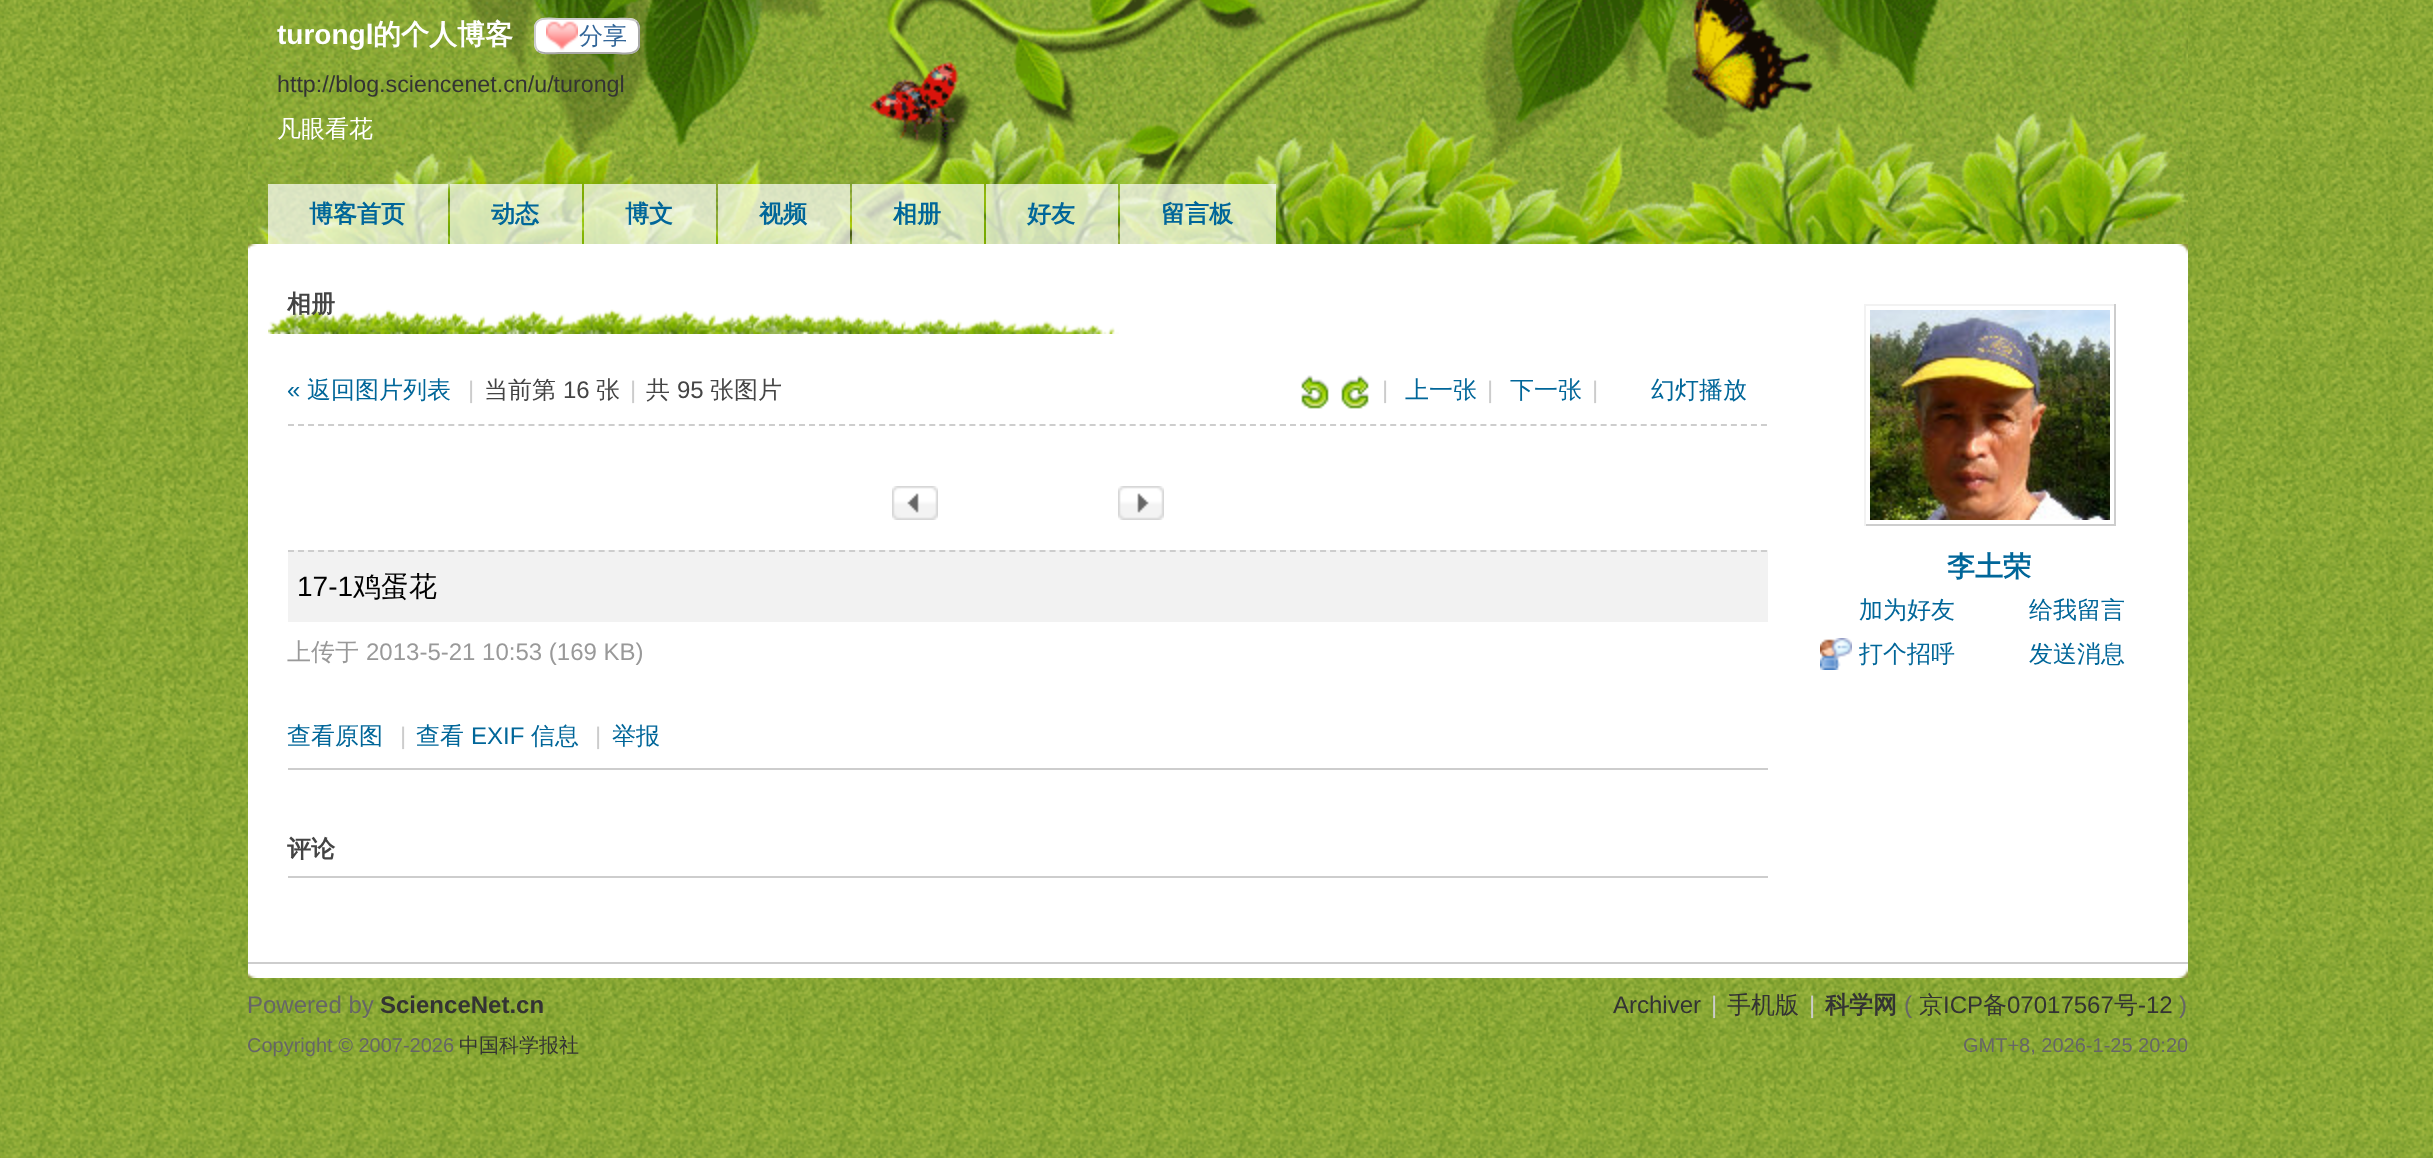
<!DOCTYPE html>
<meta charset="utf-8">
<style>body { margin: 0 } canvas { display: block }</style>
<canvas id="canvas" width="2433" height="1158"></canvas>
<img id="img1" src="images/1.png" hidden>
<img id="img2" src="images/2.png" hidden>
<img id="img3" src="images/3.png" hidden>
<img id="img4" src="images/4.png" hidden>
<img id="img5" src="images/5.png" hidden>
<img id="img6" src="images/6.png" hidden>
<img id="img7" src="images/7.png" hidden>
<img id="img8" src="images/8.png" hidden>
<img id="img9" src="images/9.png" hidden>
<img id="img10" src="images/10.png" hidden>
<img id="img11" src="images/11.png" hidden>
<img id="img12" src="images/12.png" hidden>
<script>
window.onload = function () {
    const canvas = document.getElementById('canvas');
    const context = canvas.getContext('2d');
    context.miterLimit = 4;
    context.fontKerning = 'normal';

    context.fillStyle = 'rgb(255, 255, 255)';
    context.fillRect(0, 0, 2433, 1158);
    context.drawImage(document.getElementById('img1'), 0, 0, 2433, 1158);
    context.drawImage(document.getElementById('img2'), 248, 0, 1940, 244);
    context.beginPath();
    context.roundRect(534, 18, 106, 36, 10);
    context.fill();
    context.drawImage(document.getElementById('img3'), 546, 21, 32, 30);
    context.beginPath();
    context.moveTo(636.5, 21.5);
    context.bezierCurveTo(640, 25.5, 639, 31, 639, 36);
    context.lineTo(639, 46);
    context.bezierCurveTo(637, 56, 622.5, 53, 615.5, 53);
    context.lineTo(558.5, 53);
    context.bezierCurveTo(553.5, 53, 542.5, 55, 537.5, 50.5);
    context.strokeStyle = 'rgb(169, 169, 169)';
    context.lineWidth = 2;
    context.stroke();
    context.beginPath();
    context.moveTo(537.5, 50.5);
    context.bezierCurveTo(534, 46.5, 535, 41, 535, 36);
    context.lineTo(535, 26);
    context.bezierCurveTo(537, 16, 551.5, 19, 558.5, 19);
    context.lineTo(615.5, 19);
    context.bezierCurveTo(620.5, 19, 631.5, 17, 636.5, 21.5);
    context.strokeStyle = 'rgb(204, 204, 204)';
    context.stroke();
    context.fillStyle = 'rgba(255, 255, 255, 0.7)';
    context.fillRect(268, 184, 180, 60);
    context.fillRect(450, 184, 132, 60);
    context.fillRect(584, 184, 132, 60);
    context.fillRect(718, 184, 132, 60);
    context.fillRect(852, 184, 132, 60);
    context.fillRect(986, 184, 132, 60);
    context.fillRect(1120, 184, 156, 60);
    context.fillStyle = 'rgb(255, 255, 255)';
    context.fillRect(248, 254, 1940, 708);
    context.drawImage(document.getElementById('img4'), 248, 244, 1940, 10);
    context.drawImage(document.getElementById('img5'), 268, 309, 851, 25);
    context.beginPath();
    context.moveTo(288, 425);
    context.lineTo(1768, 425);
    context.strokeStyle = 'rgb(205, 205, 205)';
    context.setLineDash([6, 4.02]);
    context.stroke();
    context.drawImage(document.getElementById('img6'), 1301, 375, 28, 34);
    context.drawImage(document.getElementById('img7'), 1341, 375, 28, 34);
    context.drawImage(document.getElementById('img8'), 892, 486, 46, 34);
    context.drawImage(document.getElementById('img9'), 1118, 486, 46, 34);
    context.fillStyle = 'rgb(205, 205, 205)';
    context.fillRect(288, 768, 1480, 2);
    context.fillStyle = 'rgb(242, 242, 242)';
    context.fillRect(288, 550, 1480, 72);
    context.beginPath();
    context.moveTo(288, 551);
    context.lineTo(1768, 551);
    context.stroke();
    context.fillStyle = 'rgb(205, 205, 205)';
    context.fillRect(288, 876, 1480, 2);
    context.fillStyle = 'rgb(242, 242, 242)';
    context.fillRect(1864, 304, 252, 2);
    context.fillStyle = 'rgb(205, 205, 205)';
    context.fillRect(2114, 304, 2, 222);
    context.fillRect(1864, 524, 252, 2);
    context.fillStyle = 'rgb(242, 242, 242)';
    context.fillRect(1864, 304, 2, 222);
    context.drawImage(document.getElementById('img10'), 1870, 310, 240, 210);
    context.drawImage(document.getElementById('img11'), 1820, 638, 32, 32);
    context.drawImage(document.getElementById('img12'), 248, 964, 1940, 14);
    context.fillStyle = 'rgb(205, 205, 205)';
    context.fillRect(248, 962, 1940, 2);
    context.font = 'bold 28px Liberation Sans';
    context.fillStyle = 'rgb(255, 255, 255)';
    context.fillText('turongl', 277, 44);
    context.font = 'bold 28px WenQuanYi Zen Hei';
    context.fillText('的个人博客', 373, 44);
    context.font = '500 24px WenQuanYi Zen Hei';
    context.fillStyle = 'rgb(51, 102, 153)';
    context.fillText('分享', 579, 44);
    context.font = '23.25px Liberation Sans';
    context.fillStyle = 'rgb(51, 51, 51)';
    context.fillText('http://blog.sciencenet.cn/u/turongl', 277, 92);
    context.font = '500 24px WenQuanYi Zen Hei';
    context.fillStyle = 'rgb(255, 255, 255)';
    context.fillText('凡眼看花', 277, 137);
    context.font = 'bold 24px WenQuanYi Zen Hei';
    context.fillStyle = 'rgb(0, 102, 153)';
    context.fillText('博客首页', 309, 222);
    context.fillText('动态', 491, 222);
    context.fillText('博文', 625, 222);
    context.fillText('视频', 759, 222);
    context.fillText('相册', 893, 222);
    context.fillText('好友', 1027, 222);
    context.fillText('留言板', 1161, 222);
    context.fillStyle = 'rgb(68, 68, 68)';
    context.fillText('相册', 287, 312);
    context.font = '24px Liberation Sans';
    context.fillStyle = 'rgb(0, 102, 153)';
    context.fillText('«', 287, 398);
    context.font = '500 24px WenQuanYi Zen Hei';
    context.fillText('返回图片列表', 307, 398);
    context.font = '24px Liberation Sans';
    context.fillStyle = 'rgb(204, 204, 204)';
    context.fillText('|', 468, 398);
    context.font = '500 24px WenQuanYi Zen Hei';
    context.fillStyle = 'rgb(68, 68, 68)';
    context.fillText('当前第', 484, 398);
    context.font = '24px Liberation Sans';
    context.fillText('16', 563, 398);
    context.font = '500 24px WenQuanYi Zen Hei';
    context.fillText('张', 596, 398);
    context.font = '24px Liberation Sans';
    context.fillStyle = 'rgb(204, 204, 204)';
    context.fillText('|', 630, 398);
    context.font = '500 24px WenQuanYi Zen Hei';
    context.fillStyle = 'rgb(68, 68, 68)';
    context.fillText('共', 646, 398);
    context.font = '24px Liberation Sans';
    context.fillText('95', 677, 398);
    context.font = '500 24px WenQuanYi Zen Hei';
    context.fillText('张图片', 710, 398);
    context.font = '24px Liberation Sans';
    context.fillStyle = 'rgb(204, 204, 204)';
    context.fillText('|', 1382, 398);
    context.font = '500 24px WenQuanYi Zen Hei';
    context.fillStyle = 'rgb(0, 102, 153)';
    context.fillText('上一张', 1405, 398);
    context.font = '24px Liberation Sans';
    context.fillStyle = 'rgb(204, 204, 204)';
    context.fillText('|', 1487, 398);
    context.font = '500 24px WenQuanYi Zen Hei';
    context.fillStyle = 'rgb(0, 102, 153)';
    context.fillText('下一张', 1510, 398);
    context.font = '24px Liberation Sans';
    context.fillStyle = 'rgb(204, 204, 204)';
    context.fillText('|', 1592, 398);
    context.font = '500 24px WenQuanYi Zen Hei';
    context.fillStyle = 'rgb(0, 102, 153)';
    context.fillText('幻灯播放', 1651, 398);
    context.font = '28px Liberation Sans';
    context.fillStyle = 'rgb(0, 0, 0)';
    context.fillText('17-1', 297, 596);
    context.font = '500 28px WenQuanYi Zen Hei';
    context.fillText('鸡蛋花', 353, 596);
    context.font = '500 24px WenQuanYi Zen Hei';
    context.fillStyle = 'rgb(153, 153, 153)';
    context.fillText('上传于', 287, 660);
    context.font = '24px Liberation Sans';
    context.fillText('2013-5-21 10:53 (169 KB)', 366, 660);
    context.font = '500 24px WenQuanYi Zen Hei';
    context.fillStyle = 'rgb(0, 102, 153)';
    context.fillText('查看原图', 287, 744);
    context.font = '24px Liberation Sans';
    context.fillStyle = 'rgb(204, 204, 204)';
    context.fillText('|', 400, 744);
    context.font = '500 24px WenQuanYi Zen Hei';
    context.fillStyle = 'rgb(0, 102, 153)';
    context.fillText('查看', 416, 744);
    context.font = '24px Liberation Sans';
    context.fillText('EXIF', 471, 744);
    context.font = '500 24px WenQuanYi Zen Hei';
    context.fillText('信息', 531, 744);
    context.font = '24px Liberation Sans';
    context.fillStyle = 'rgb(204, 204, 204)';
    context.fillText('|', 595, 744);
    context.font = '500 24px WenQuanYi Zen Hei';
    context.fillStyle = 'rgb(0, 102, 153)';
    context.fillText('举报', 612, 744);
    context.font = 'bold 24px WenQuanYi Zen Hei';
    context.fillStyle = 'rgb(68, 68, 68)';
    context.fillText('评论', 287, 857);
    context.font = 'bold 28px WenQuanYi Zen Hei';
    context.fillStyle = 'rgb(0, 102, 153)';
    context.fillText('李土荣', 1947, 576);
    context.font = '500 24px WenQuanYi Zen Hei';
    context.fillText('加为好友', 1859, 618);
    context.fillText('给我留言', 2029, 618);
    context.fillText('打个招呼', 1859, 662);
    context.fillText('发送消息', 2029, 662);
    context.font = '24px Liberation Sans';
    context.fillStyle = 'rgb(102, 102, 102)';
    context.fillText('Powered by', 247, 1013);
    context.font = 'bold 24px Liberation Sans';
    context.fillStyle = 'rgb(51, 51, 51)';
    context.fillText('ScienceNet.cn', 380, 1013);
    context.font = '20px Liberation Sans';
    context.fillStyle = 'rgb(102, 102, 102)';
    context.fillText('Copyright © 2007-2026', 247, 1052);
    context.font = '500 20px WenQuanYi Zen Hei';
    context.fillStyle = 'rgb(51, 51, 51)';
    context.fillText('中国科学报社', 459, 1052);
    context.font = '24px Liberation Sans';
    context.fillText('Archiver', 1613, 1013);
    context.fillStyle = 'rgb(204, 204, 204)';
    context.fillText('|', 1711, 1013);
    context.font = '500 24px WenQuanYi Zen Hei';
    context.fillStyle = 'rgb(51, 51, 51)';
    context.fillText('手机版', 1727, 1013);
    context.font = '24px Liberation Sans';
    context.fillStyle = 'rgb(204, 204, 204)';
    context.fillText('|', 1809, 1013);
    context.font = 'bold 24px WenQuanYi Zen Hei';
    context.fillStyle = 'rgb(51, 51, 51)';
    context.fillText('科学网', 1825, 1013);
    context.font = '24px Liberation Sans';
    context.fillStyle = 'rgb(102, 102, 102)';
    context.fillText('(', 1904, 1013);
    context.font = '500 24px WenQuanYi Zen Hei';
    context.fillStyle = 'rgb(51, 51, 51)';
    context.fillText('京', 1919, 1013);
    context.font = '24px Liberation Sans';
    context.fillText('ICP', 1943, 1013);
    context.font = '500 24px WenQuanYi Zen Hei';
    context.fillText('备', 1983, 1013);
    context.font = '24px Liberation Sans';
    context.fillText('07017567', 2007, 1013);
    context.font = '500 24px WenQuanYi Zen Hei';
    context.fillText('号', 2114, 1013);
    context.font = '24px Liberation Sans';
    context.fillText('-12', 2138, 1013);
    context.fillStyle = 'rgb(102, 102, 102)';
    context.fillText(')', 2179, 1013);
    context.font = '20px Liberation Sans';
    context.fillText('GMT+8, 2026-1-25 20:20', 1963, 1052);
};
</script>
